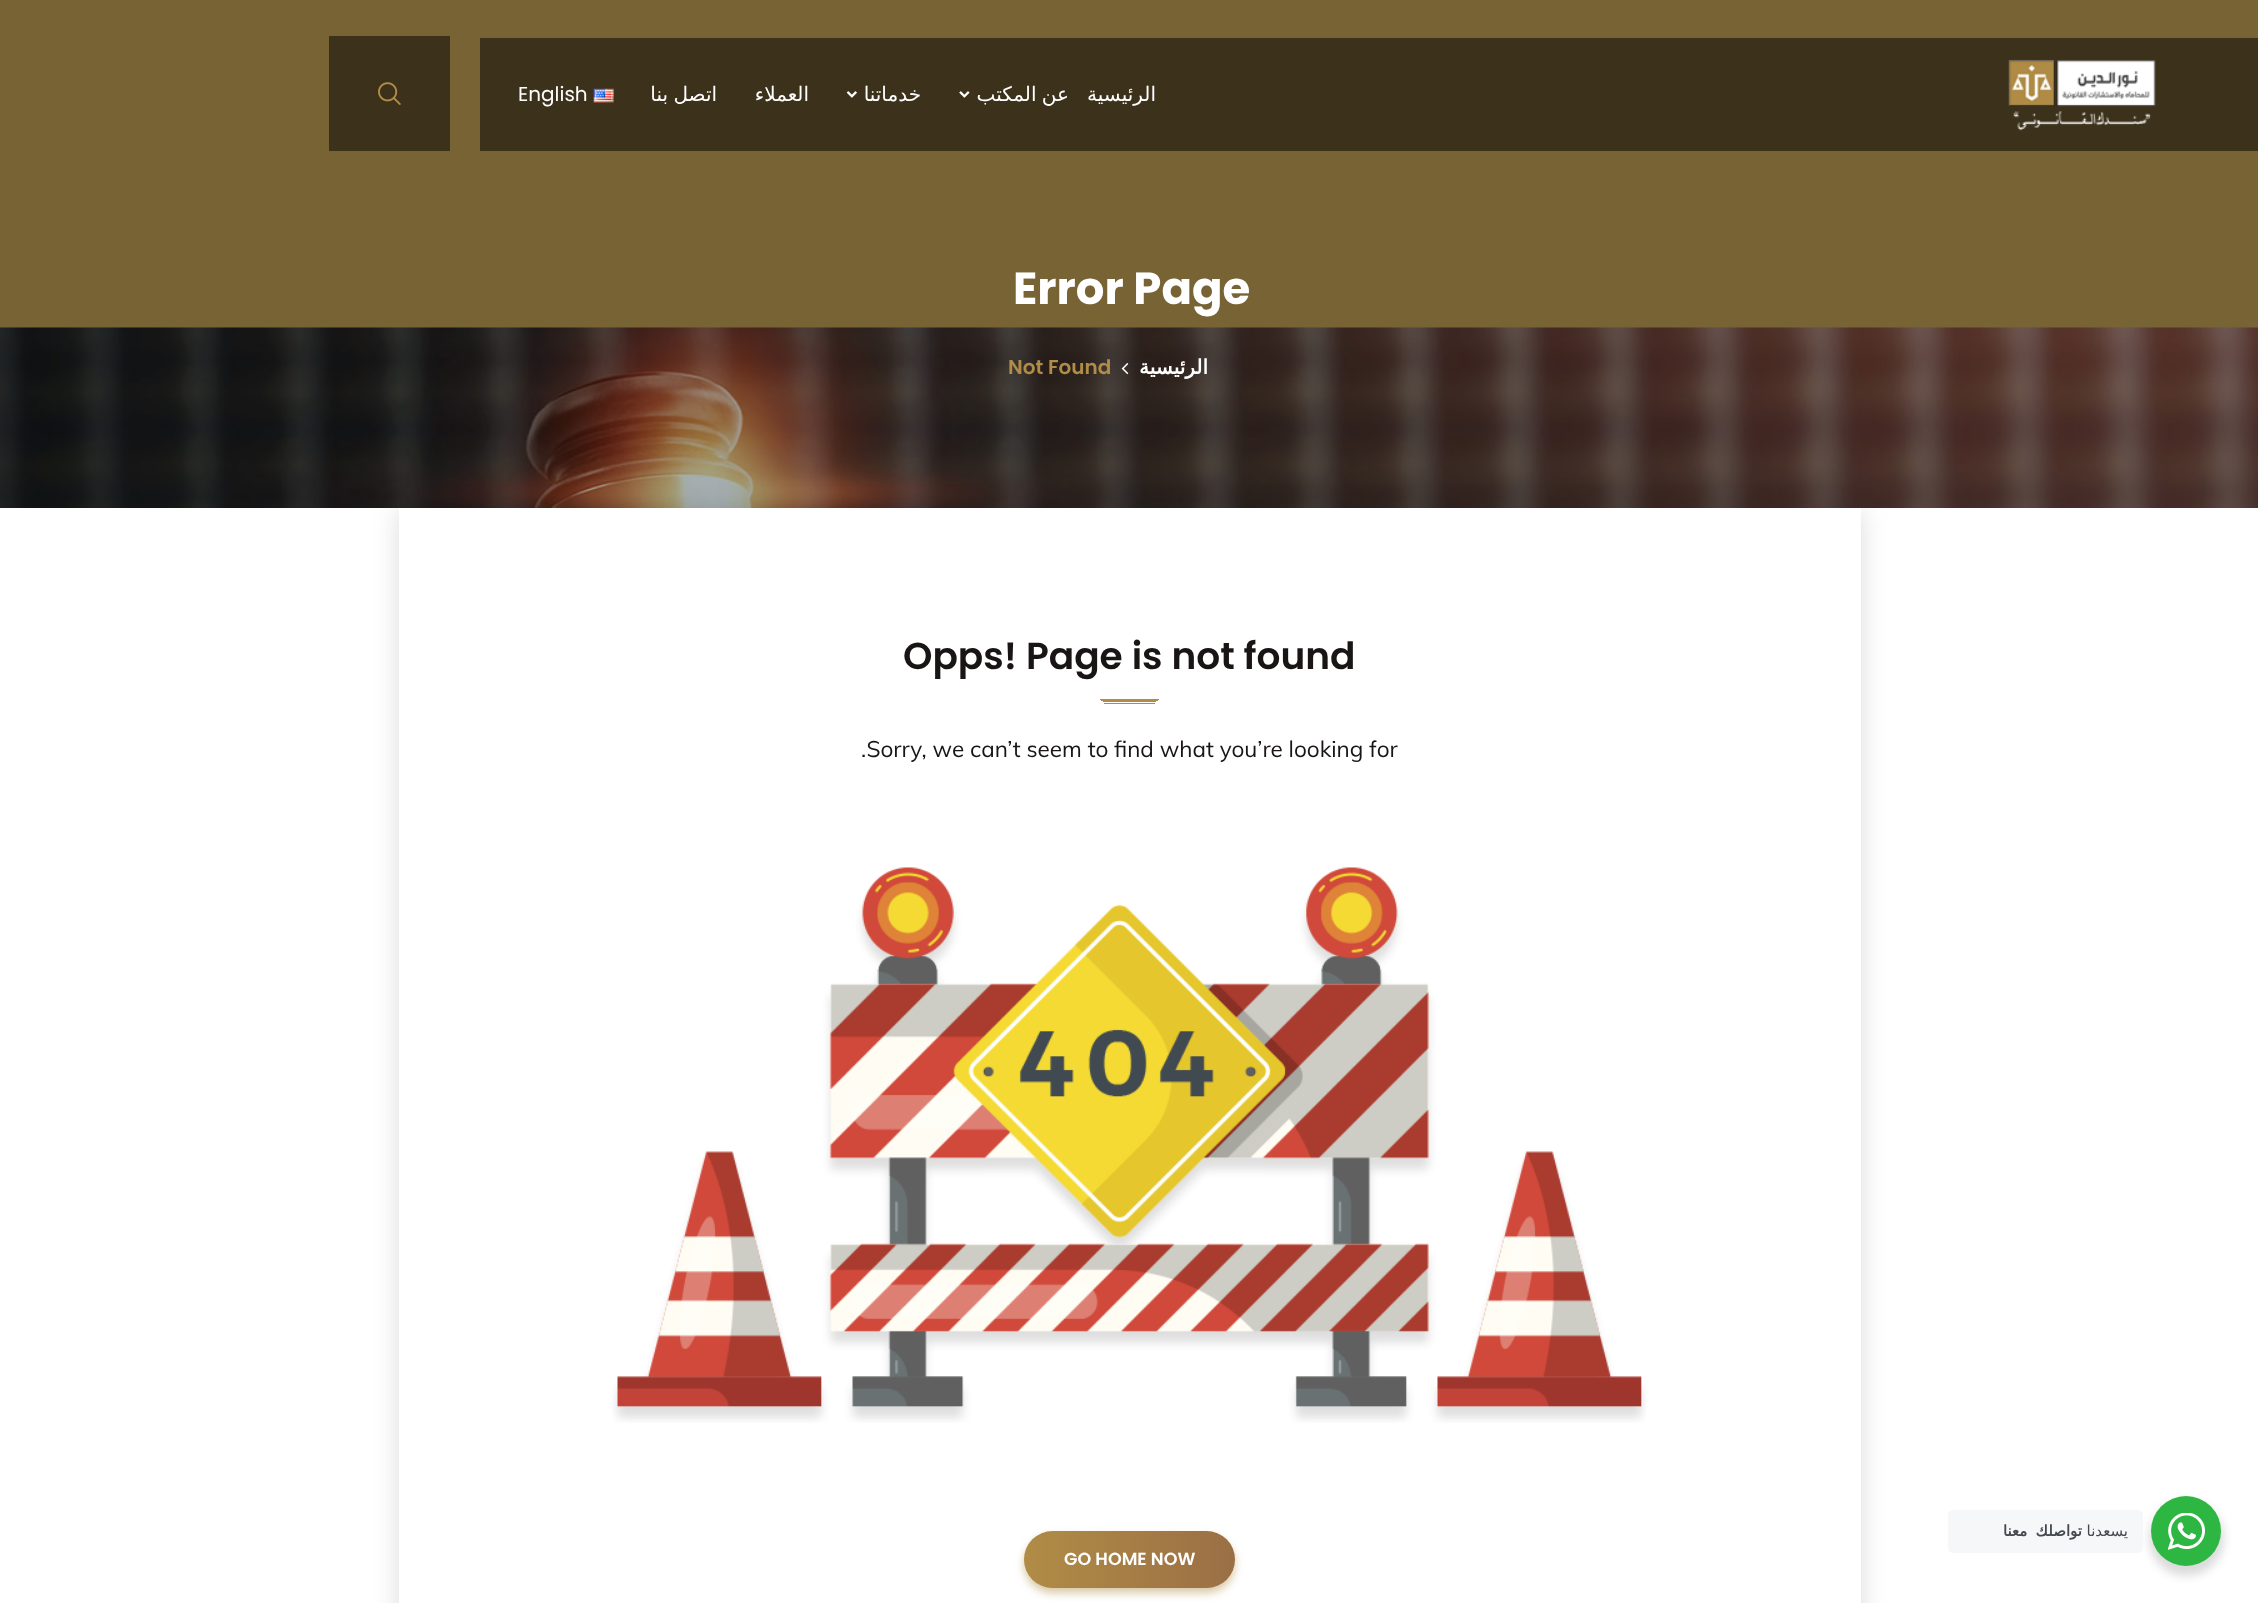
<!DOCTYPE html>
<meta charset="utf-8">
<style>body { margin: 0 } canvas { display: block }</style>
<canvas id="canvas" width="2258" height="1603"></canvas>
<img id="img1" src="images/1.png" hidden>
<img id="img2" src="images/2.png" hidden>
<img id="img3" src="images/3.png" hidden>
<img id="img4" src="images/4.png" hidden>
<img id="img5" src="images/5.png" hidden>
<img id="img6" src="images/6.png" hidden>
<img id="img7" src="images/7.png" hidden>
<img id="img8" src="images/8.png" hidden>
<img id="img9" src="images/9.png" hidden>
<script>
window.onload = function () {
    const canvas = document.getElementById('canvas');
    const context = canvas.getContext('2d');
    context.miterLimit = 4;
    context.fontKerning = 'normal';
    let gradient;

    context.fillStyle = 'rgb(255, 255, 255)';
    context.fillRect(0, 0, 2258, 1603);
    context.fillStyle = 'rgb(120, 99, 53)';
    context.fillRect(0, 0, 2258, 328);
    context.fillStyle = 'rgb(60, 49, 27)';
    context.fillRect(329, 36, 121, 115);
    context.drawImage(document.getElementById('img1'), 378, 82, 23, 23);
    context.fillRect(480, 38, 1778, 113);
    context.drawImage(document.getElementById('img2'), 593, 88, 21, 15);
    context.drawImage(document.getElementById('img3'), 846, 91, 11, 7);
    context.drawImage(document.getElementById('img4'), 959, 91, 11, 7);
    context.drawImage(document.getElementById('img5'), 2008, 59, 148, 72);
    context.drawImage(document.getElementById('img6'), 0, 327, 2258, 181);
    context.drawImage(document.getElementById('img7'), 1121, 363, 8, 12);
    context.save();
    context.beginPath();
    context.moveTo(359, 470);
    context.lineTo(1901, 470);
    context.lineTo(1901, 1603);
    context.lineTo(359, 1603);
    context.closePath();
    context.moveTo(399, 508);
    context.lineTo(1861, 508);
    context.lineTo(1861, 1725);
    context.lineTo(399, 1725);
    context.closePath();
    context.clip('evenodd');
    context.fillStyle = 'rgba(0, 0, 0, 0.14)';
    context.filter = 'blur(13px)';
    context.beginPath();
    context.rect(399, 510, 1462, 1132);
    context.fill();
    context.filter = 'none';
    context.restore();
    context.fillStyle = 'rgb(176, 140, 70)';
    context.fillRect(1100, 699, 59, 1);
    context.fillRect(1101, 700, 57, 1);
    context.fillRect(1103, 701, 53, 1);
    context.fillRect(1104, 703, 51, 1);
    context.drawImage(document.getElementById('img8'), 612, 867, 1034, 556);
    context.fillStyle = 'rgba(176, 140, 70, 0.48)';
    context.filter = 'blur(4.5px)';
    context.beginPath();
    context.roundRect(1024, 1536, 211, 57, 28.5);
    context.fill();
    context.filter = 'none';
    gradient = context.createLinearGradient(1024, 1559, 1235, 1559);
    gradient.addColorStop(0, 'rgb(176, 140, 70)');
    gradient.addColorStop(1, 'rgb(155, 111, 69)');
    context.fillStyle = gradient;
    context.beginPath();
    context.roundRect(1024, 1531, 211, 57, 28.5);
    context.fill();
    context.fillStyle = 'rgba(0, 0, 0, 0.14)';
    context.filter = 'blur(5px)';
    context.beginPath();
    context.roundRect(2149, 1501, 75, 75, 37.5);
    context.fill();
    context.filter = 'none';
    context.fillStyle = 'rgb(245, 247, 249)';
    context.beginPath();
    context.roundRect(1948, 1510, 195, 43, 5);
    context.fill();
    context.fillStyle = 'rgb(45, 183, 66)';
    context.beginPath();
    context.arc(2186, 1531, 35, 0, 2 * Math.PI);
    context.fill();
    context.drawImage(document.getElementById('img9'), 2168, 1513, 37, 37);
    context.font = '20px Poppins';
    context.fillStyle = 'rgb(255, 255, 255)';
    context.fillText('English', 518, 101);
    context.wordSpacing = '-1px';
    context.direction = 'rtl';
    context.font = '20px DejaVu Sans';
    context.fillText('اتصل بنا', 717, 101);
    context.wordSpacing = '0px';
    context.fillText('العملاء', 809, 101);
    context.fillText('خدماتنا', 921, 101);
    context.wordSpacing = '-1px';
    context.fillText('عن المكتب', 1069, 101);
    context.wordSpacing = '0px';
    context.fillText('الرئيسية', 1156, 101);
    context.direction = 'ltr';
    context.font = 'bold 45px Poppins';
    context.fillText('Error Page', 1013, 304);
    context.font = '600 20px Poppins';
    context.fillStyle = 'rgb(176, 140, 70)';
    context.fillText('Not Found', 1008, 374);
    context.direction = 'rtl';
    context.font = 'bold 20px DejaVu Sans';
    context.fillStyle = 'rgb(255, 255, 255)';
    context.fillText('الرئيسية', 1208, 374);
    context.direction = 'ltr';
    context.font = '600 37.5px Poppins';
    context.fillStyle = 'rgb(25, 21, 20)';
    context.fillText('Opps! Page is not found', 903, 669);
    context.font = '22.5px Muli';
    context.fillText('.Sorry, we can’t seem to find what you’re looking for', 861, 757);
    context.font = '600 17.5px Poppins';
    context.fillStyle = 'rgb(255, 255, 255)';
    context.fillText('GO HOME NOW', 1064, 1565);
    context.letterSpacing = '-0.5px';
    context.wordSpacing = '4px';
    context.direction = 'rtl';
    context.font = 'bold 15px DejaVu Sans';
    context.fillStyle = 'rgb(67, 71, 78)';
    context.fillText('تواصلك معنا', 2082, 1536);
    context.wordSpacing = '0px';
    context.font = '15px DejaVu Sans';
    context.fillText('يسعدنا', 2128, 1536);
};
</script>
